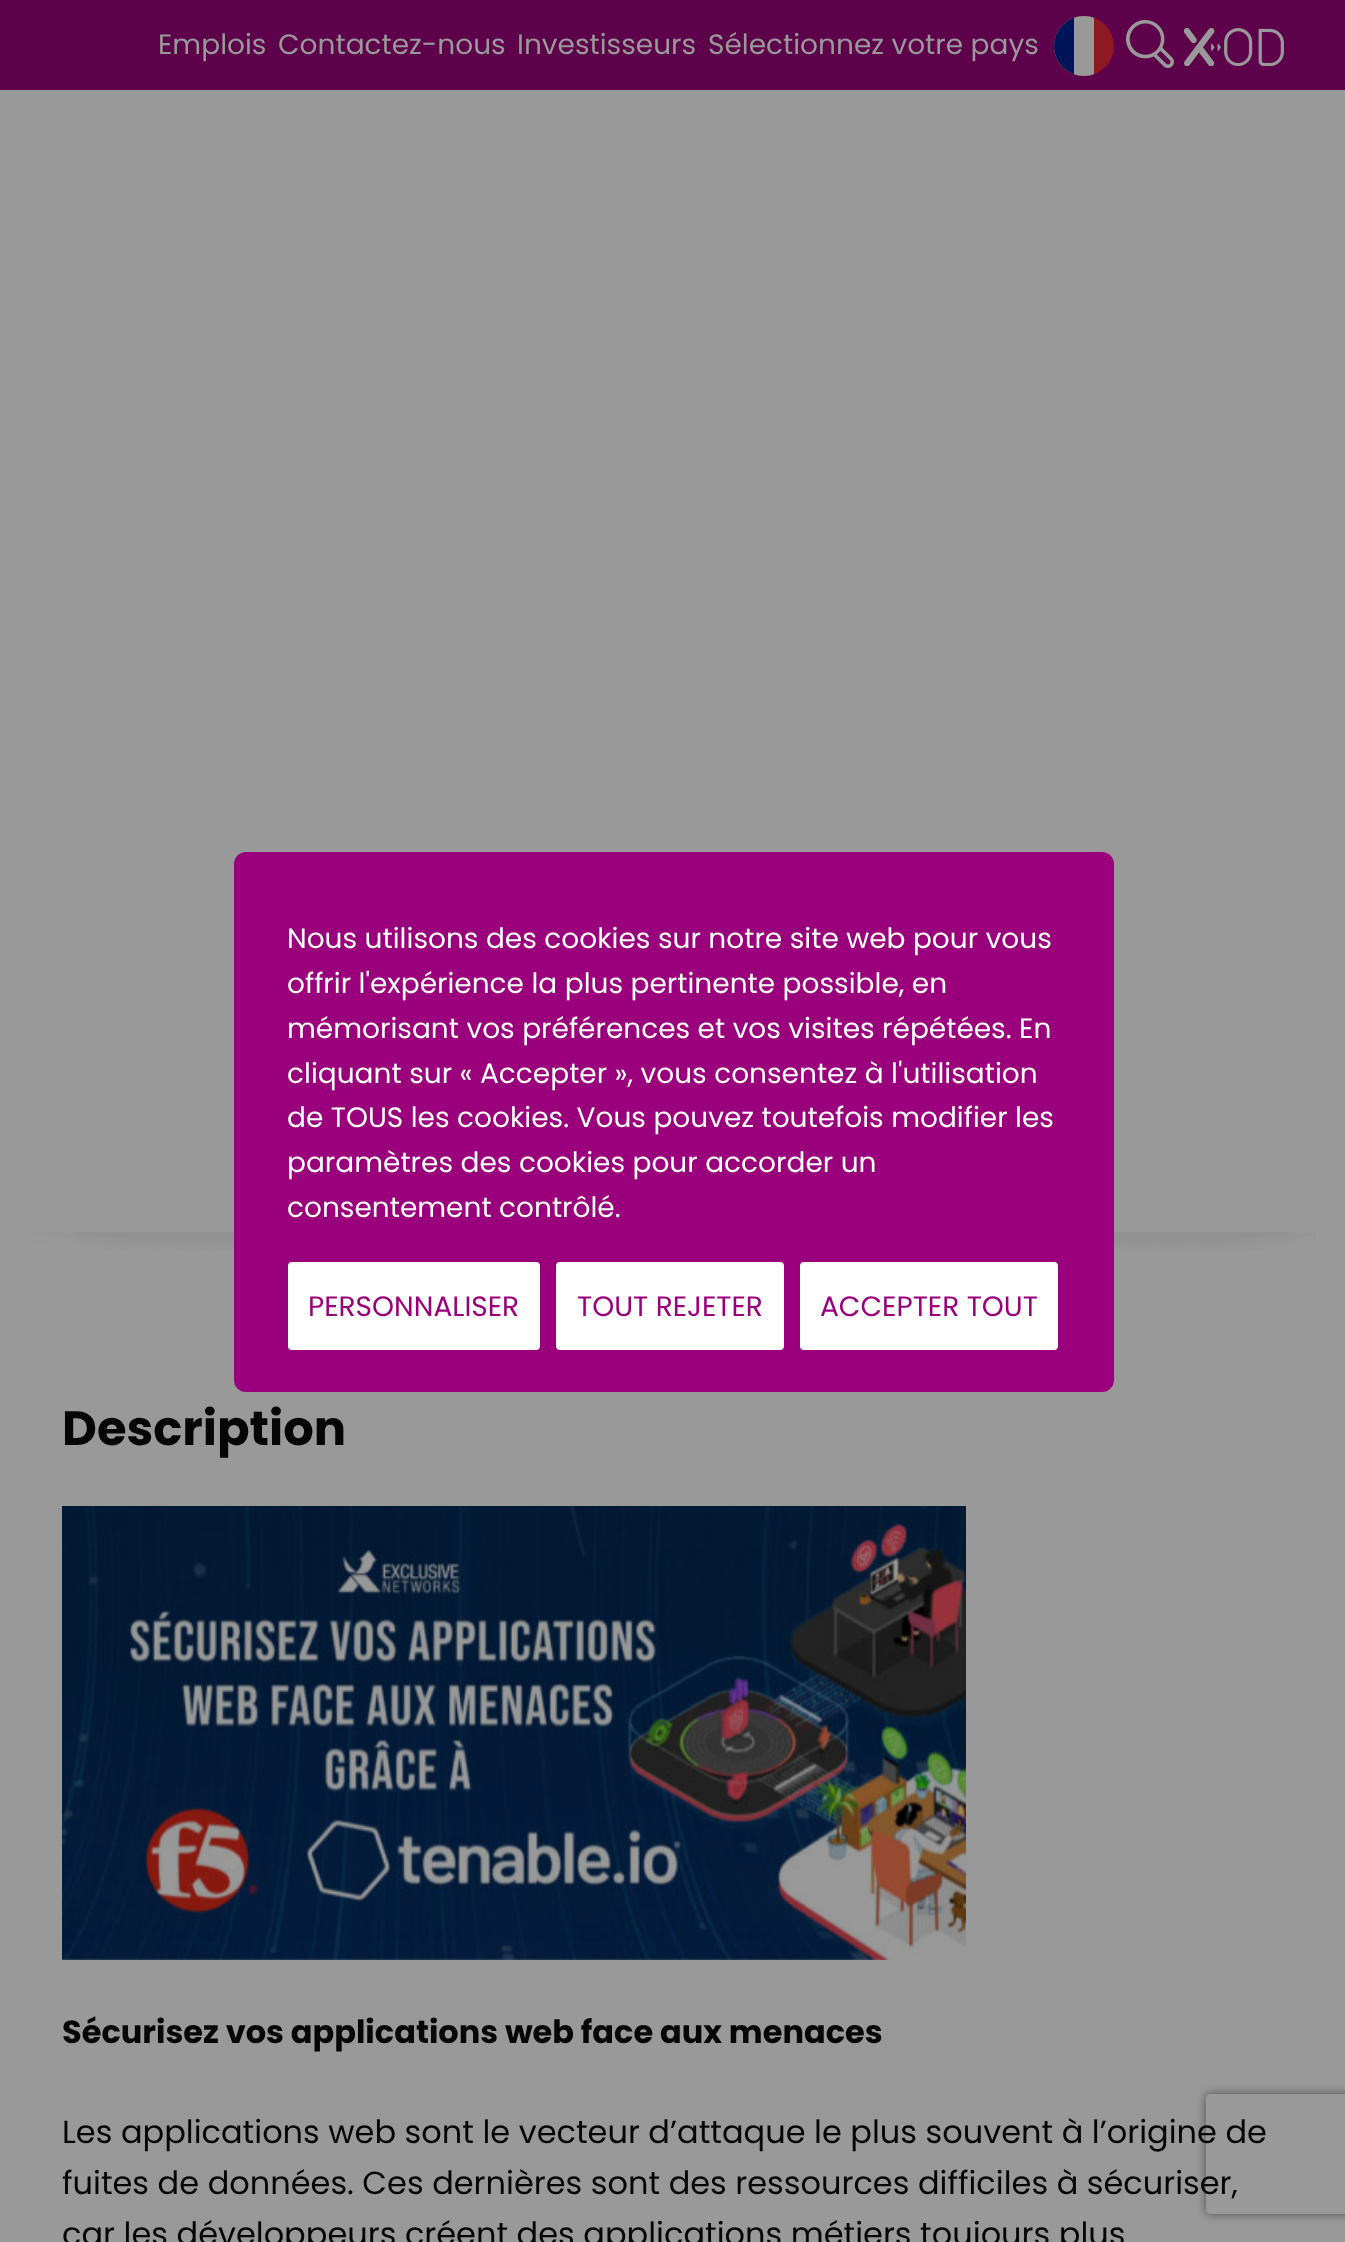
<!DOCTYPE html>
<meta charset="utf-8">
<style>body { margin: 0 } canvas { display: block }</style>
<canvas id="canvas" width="1345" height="2242"></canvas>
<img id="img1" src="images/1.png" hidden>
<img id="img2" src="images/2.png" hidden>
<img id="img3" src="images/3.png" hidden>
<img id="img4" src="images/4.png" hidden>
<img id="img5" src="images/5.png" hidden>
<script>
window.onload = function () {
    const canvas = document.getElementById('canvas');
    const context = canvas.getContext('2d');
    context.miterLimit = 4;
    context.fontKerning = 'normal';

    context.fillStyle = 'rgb(153, 153, 153)';
    context.fillRect(0, 0, 1345, 2242);
    context.fillStyle = 'rgb(94, 1, 75)';
    context.fillRect(0, 0, 1345, 90);
    context.drawImage(document.getElementById('img1'), 1054, 16, 60, 60);
    context.drawImage(document.getElementById('img2'), 1126, 20, 48, 48);
    context.drawImage(document.getElementById('img3'), 1184, 28, 100, 38);
    context.drawImage(document.getElementById('img4'), 32, 1232, 1284, 17);
    context.drawImage(document.getElementById('img5'), 62, 1506, 904, 454);
    context.fillStyle = 'rgb(155, 0, 124)';
    context.beginPath();
    context.roundRect(235, 853, 878, 538, 11);
    context.fill();
    context.strokeStyle = 'rgb(155, 0, 124)';
    context.lineWidth = 2;
    context.stroke();
    context.fillStyle = 'rgb(255, 255, 255)';
    context.beginPath();
    context.roundRect(290, 1264, 248, 84, 2);
    context.fill();
    context.strokeStyle = 'rgb(255, 255, 255)';
    context.lineWidth = 4;
    context.stroke();
    context.beginPath();
    context.roundRect(558, 1264, 224, 84, 2);
    context.fill();
    context.stroke();
    context.beginPath();
    context.roundRect(802, 1264, 254, 84, 2);
    context.fill();
    context.stroke();
    context.save();
    context.beginPath();
    context.moveTo(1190, 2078);
    context.lineTo(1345, 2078);
    context.lineTo(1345, 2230);
    context.lineTo(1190, 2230);
    context.closePath();
    context.moveTo(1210, 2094);
    context.lineTo(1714, 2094);
    context.bezierCurveTo(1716, 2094, 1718, 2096, 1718, 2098);
    context.lineTo(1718, 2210);
    context.bezierCurveTo(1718, 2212, 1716, 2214, 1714, 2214);
    context.lineTo(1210, 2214);
    context.bezierCurveTo(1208, 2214, 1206, 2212, 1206, 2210);
    context.lineTo(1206, 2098);
    context.bezierCurveTo(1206, 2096, 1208, 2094, 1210, 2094);
    context.closePath();
    context.clip('evenodd');
    context.fillStyle = 'rgb(77, 77, 77)';
    context.filter = 'blur(5px)';
    context.beginPath();
    context.roundRect(1206, 2094, 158, 120, 4);
    context.fill();
    context.filter = 'none';
    context.restore();
    context.font = '28px Poppins';
    context.fillStyle = 'rgb(153, 153, 153)';
    context.fillText('Emplois', 158, 54);
    context.fillText('Contactez-nous', 278, 54);
    context.fillText('Investisseurs', 517, 54);
    context.fillText('Sélectionnez votre pays', 708, 54);
    context.font = 'bold 48px Poppins';
    context.fillStyle = 'rgb(6, 6, 6)';
    context.fillText('Description', 62, 1445);
    context.font = 'bold 32px Poppins';
    context.fillText('Sécurisez vos applications web face aux menaces', 62, 2043);
    context.font = '32px Poppins';
    context.fillText('Les applications web sont le vecteur d’attaque le plus souvent à l’origine de', 62, 2143);
    context.fillText('fuites de données. Ces dernières sont des ressources difficiles à sécuriser,', 62, 2194);
    context.fillText('car les développeurs créent des applications métiers toujours plus', 62, 2245);
    context.font = '28px Poppins';
    context.fillStyle = 'rgb(255, 255, 255)';
    context.fillText('Nous utilisons des cookies sur notre site web pour vous', 287, 948);
    context.fillText('offrir l\'expérience la plus pertinente possible, en', 287, 993);
    context.fillText('mémorisant vos préférences et vos visites répétées. En', 287, 1038);
    context.fillText('cliquant sur « Accepter », vous consentez à l\'utilisation', 287, 1083);
    context.fillText('de TOUS les cookies. Vous pouvez toutefois modifier les', 287, 1127);
    context.fillText('paramètres des cookies pour accorder un', 287, 1172);
    context.fillText('consentement contrôlé.', 287, 1217);
    context.fillStyle = 'rgb(155, 0, 124)';
    context.fillText('PERSONNALISER', 308, 1316);
    context.fillText('TOUT REJETER', 577, 1316);
    context.fillText('ACCEPTER TOUT', 820, 1316);
};
</script>
